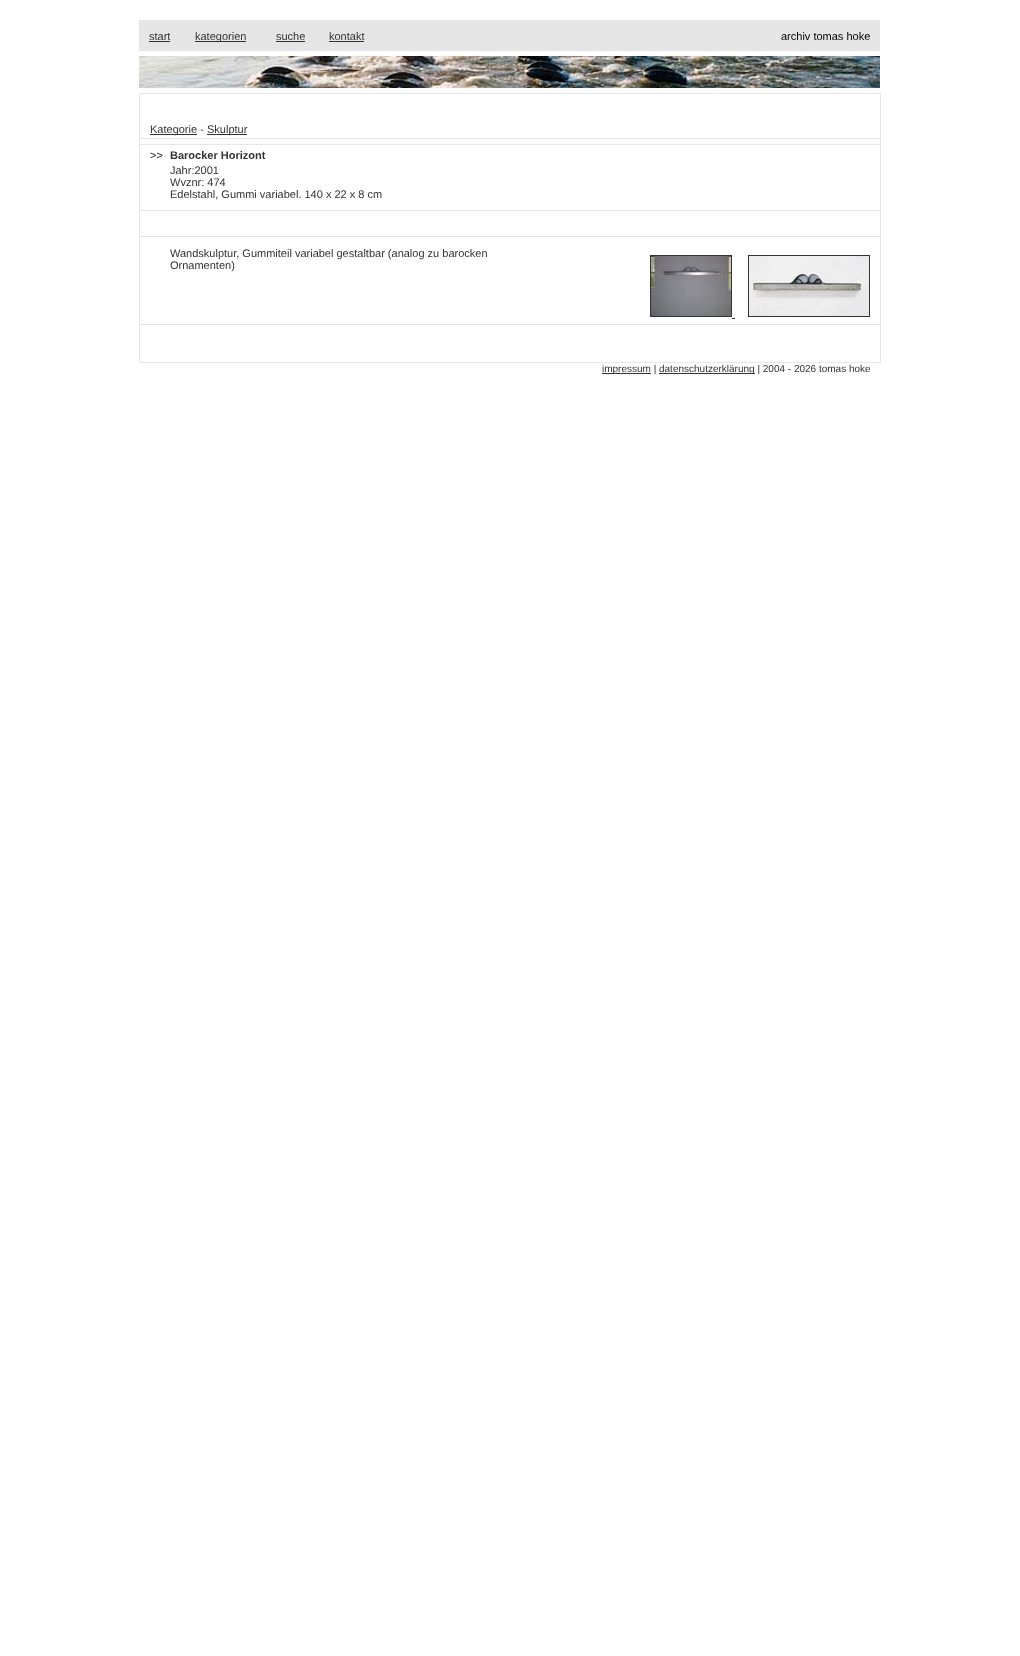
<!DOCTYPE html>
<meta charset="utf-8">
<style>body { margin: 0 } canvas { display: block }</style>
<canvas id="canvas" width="1020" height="1656"></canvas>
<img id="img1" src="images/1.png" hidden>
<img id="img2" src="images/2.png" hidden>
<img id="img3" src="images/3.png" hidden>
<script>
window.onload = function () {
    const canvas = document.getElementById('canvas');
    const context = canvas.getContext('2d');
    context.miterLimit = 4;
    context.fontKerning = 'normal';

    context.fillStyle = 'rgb(255, 255, 255)';
    context.fillRect(0, 0, 1020, 1656);
    context.fillStyle = 'rgb(230, 230, 230)';
    context.fillRect(139, 20, 741, 31);
    context.fillStyle = 'rgb(51, 51, 51)';
    context.fillRect(149, 41, 21, 1);
    context.fillRect(195, 41, 51, 1);
    context.fillRect(276, 41, 29, 1);
    context.fillRect(329, 41, 35, 1);
    context.drawImage(document.getElementById('img1'), 139, 56, 741, 32);
    context.fillStyle = 'rgb(230, 230, 230)';
    context.fillRect(139, 93, 742, 1);
    context.fillRect(139, 94, 1, 269);
    context.fillStyle = 'rgb(51, 51, 51)';
    context.fillRect(150, 134, 47, 1);
    context.fillRect(207, 134, 40, 1);
    context.fillStyle = 'rgb(230, 230, 230)';
    context.fillRect(140, 138, 740, 1);
    context.fillRect(140, 144, 740, 1);
    context.fillRect(140, 210, 740, 1);
    context.fillRect(140, 236, 740, 1);
    context.strokeStyle = 'rgb(51, 51, 51)';
    context.strokeRect(650.5, 255.5, 81, 61);
    context.strokeRect(748.5, 255.5, 121, 61);
    context.drawImage(document.getElementById('img2'), 651, 256, 80, 60);
    context.drawImage(document.getElementById('img3'), 749, 256, 120, 60);
    context.fillStyle = 'rgb(51, 51, 51)';
    context.fillRect(732, 318, 3, 1);
    context.fillStyle = 'rgb(230, 230, 230)';
    context.fillRect(140, 324, 740, 1);
    context.fillRect(880, 94, 1, 268);
    context.fillRect(140, 362, 741, 1);
    context.fillStyle = 'rgb(51, 51, 51)';
    context.fillRect(602, 373, 49, 1);
    context.fillRect(659, 373, 96, 1);
    context.font = '11px Liberation Sans';
    context.fillText('start', 149, 40);
    context.fillText('kategorien', 195, 40);
    context.fillText('suche', 276, 40);
    context.fillText('kontakt', 329, 40);
    context.fillStyle = 'rgb(0, 0, 0)';
    context.fillText('archiv tomas hoke', 781, 40);
    context.fillStyle = 'rgb(51, 51, 51)';
    context.fillText('Kategorie -', 150, 133);
    context.fillText('Skulptur', 207, 133);
    context.fillText('>>', 150, 159);
    context.font = 'bold 11px Liberation Sans';
    context.fillText('Barocker Horizont', 170, 159);
    context.font = '11px Liberation Sans';
    context.fillText('Jahr:2001', 170, 174);
    context.fillText('Wvznr: 474', 170, 186);
    context.fillText('Edelstahl, Gummi variabel. 140 x 22 x 8 cm', 170, 198);
    context.fillText('Wandskulptur, Gummiteil variabel gestaltbar (analog zu barocken', 170, 257);
    context.fillText('Ornamenten)', 170, 269);
    context.font = '10px Liberation Sans';
    context.fillText('impressum |', 602, 372);
    context.fillText('datenschutzerklärung | 2004 - 2026 tomas hoke', 659, 372);
};
</script>
